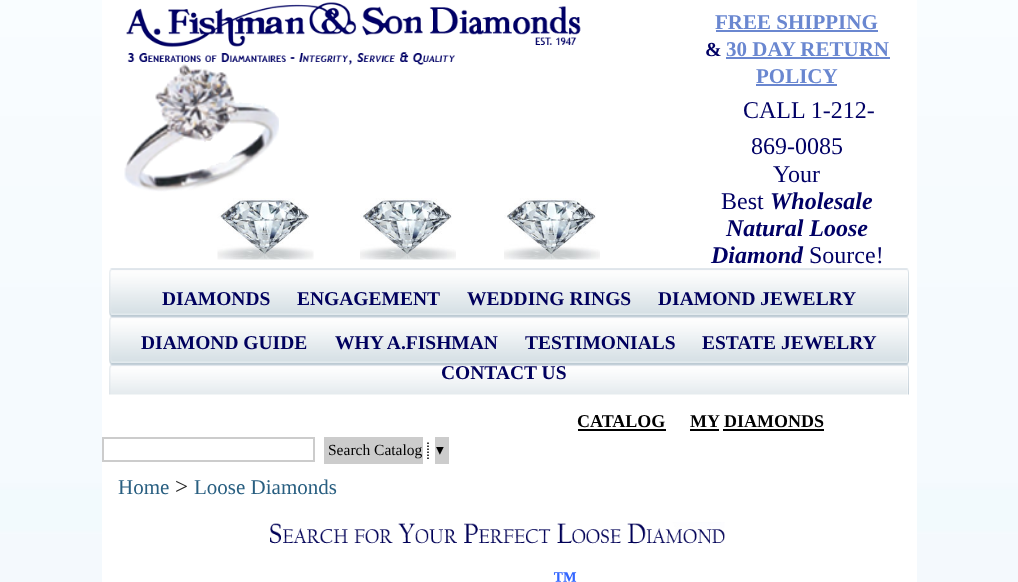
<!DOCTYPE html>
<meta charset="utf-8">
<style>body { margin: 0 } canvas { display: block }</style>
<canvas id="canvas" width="1018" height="582"></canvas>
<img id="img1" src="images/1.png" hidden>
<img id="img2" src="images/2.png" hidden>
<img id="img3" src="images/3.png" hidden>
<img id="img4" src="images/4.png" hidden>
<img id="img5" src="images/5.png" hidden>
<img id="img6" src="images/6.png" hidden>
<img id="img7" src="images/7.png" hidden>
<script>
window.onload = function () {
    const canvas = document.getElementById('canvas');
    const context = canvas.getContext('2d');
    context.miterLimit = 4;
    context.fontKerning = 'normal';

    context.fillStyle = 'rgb(255, 255, 255)';
    context.fillRect(0, 0, 1018, 582);
    context.drawImage(document.getElementById('img1'), 0, 0, 1018, 582);
    context.fillRect(102, 0, 815, 582);
    context.drawImage(document.getElementById('img2'), 126, 2, 455, 63);
    context.drawImage(document.getElementById('img3'), 124, 64, 155, 128);
    context.drawImage(document.getElementById('img4'), 217, 198, 97, 62);
    context.drawImage(document.getElementById('img5'), 360, 198, 96, 62);
    context.drawImage(document.getElementById('img5'), 504, 198, 96, 62);
    context.fillStyle = 'rgb(106, 135, 208)';
    context.fillRect(716, 30, 162, 2);
    context.fillRect(726, 57, 164, 2);
    context.fillRect(756, 84, 81, 2);
    context.drawImage(document.getElementById('img6'), 109, 268, 800, 127);
    context.fillStyle = 'rgb(0, 0, 0)';
    context.fillRect(578, 429, 88, 2);
    context.fillRect(690, 429, 29, 2);
    context.fillRect(723, 429, 101, 2);
    context.strokeStyle = 'rgb(204, 204, 204)';
    context.lineWidth = 2;
    context.strokeRect(103, 438, 211, 23);
    context.fillStyle = 'rgb(204, 204, 204)';
    context.fillRect(324, 437, 99, 27);
    context.beginPath();
    context.moveTo(428, 442.5);
    context.lineTo(428, 459);
    context.strokeStyle = 'rgb(0, 0, 0)';
    context.lineWidth = 1.5;
    context.setLineDash([1.5, 1.5]);
    context.stroke();
    context.fillRect(435, 437, 14, 27);
    context.drawImage(document.getElementById('img7'), 270, 522, 455, 22);
    context.font = 'bold 21px Liberation Serif';
    context.fillStyle = 'rgb(106, 135, 208)';
    context.fillText('FREE SHIPPING', 715, 29);
    context.font = 'bold 20px Liberation Serif';
    context.fillStyle = 'rgb(0, 0, 101)';
    context.fillText('&', 705, 56);
    context.font = 'bold 21px Liberation Serif';
    context.fillStyle = 'rgb(106, 135, 208)';
    context.fillText('30 DAY RETURN', 726, 56);
    context.fillText('POLICY', 756, 83);
    context.font = '24px Liberation Serif';
    context.fillStyle = 'rgb(0, 0, 101)';
    context.fillText('CALL 1-212-', 743, 118);
    context.fillText('869-0085', 751, 154);
    context.fillText('Your', 773, 182);
    context.fillText('Best', 721, 209);
    context.font = 'italic bold 24px Liberation Serif';
    context.fillText('Wholesale', 770, 209);
    context.fillText('Natural Loose', 726, 236);
    context.fillText('Diamond', 711, 263);
    context.font = '24px Liberation Serif';
    context.fillText('Source!', 809, 263);
    context.font = 'bold 19.5px Liberation Serif';
    context.fillStyle = 'rgb(0, 0, 93)';
    context.fillText('DIAMONDS', 162, 305);
    context.fillText('ENGAGEMENT', 297, 305);
    context.fillText('WEDDING RINGS', 467, 305);
    context.fillText('DIAMOND JEWELRY', 658, 305);
    context.fillText('DIAMOND GUIDE', 141, 349);
    context.fillText('WHY A.FISHMAN', 335, 349);
    context.fillText('TESTIMONIALS', 525, 349);
    context.fillText('ESTATE JEWELRY', 702, 349);
    context.fillText('CONTACT US', 441, 379);
    context.font = 'bold 18px Liberation Serif';
    context.fillStyle = 'rgb(0, 0, 0)';
    context.fillText('CATALOG', 577, 427);
    context.fillText('MY', 690, 427);
    context.fillText('DIAMONDS', 724, 427);
    context.font = '15.5px Liberation Serif';
    context.fillText('Search Catalog', 328, 455);
    context.font = '15.5px DejaVu Sans';
    context.fillText('▾', 436, 455);
    context.font = '21px Liberation Serif';
    context.fillStyle = 'rgb(41, 95, 129)';
    context.fillText('Home', 118, 494);
    context.font = '23px Liberation Serif';
    context.fillStyle = 'rgb(40, 40, 40)';
    context.fillText('>', 175, 494);
    context.font = '21px Liberation Serif';
    context.fillStyle = 'rgb(41, 95, 129)';
    context.fillText('Loose Diamonds', 194, 494);
    context.font = 'bold 24px Liberation Serif';
    context.fillStyle = 'rgb(51, 102, 255)';
    context.fillText('™', 553, 588);
};
</script>
